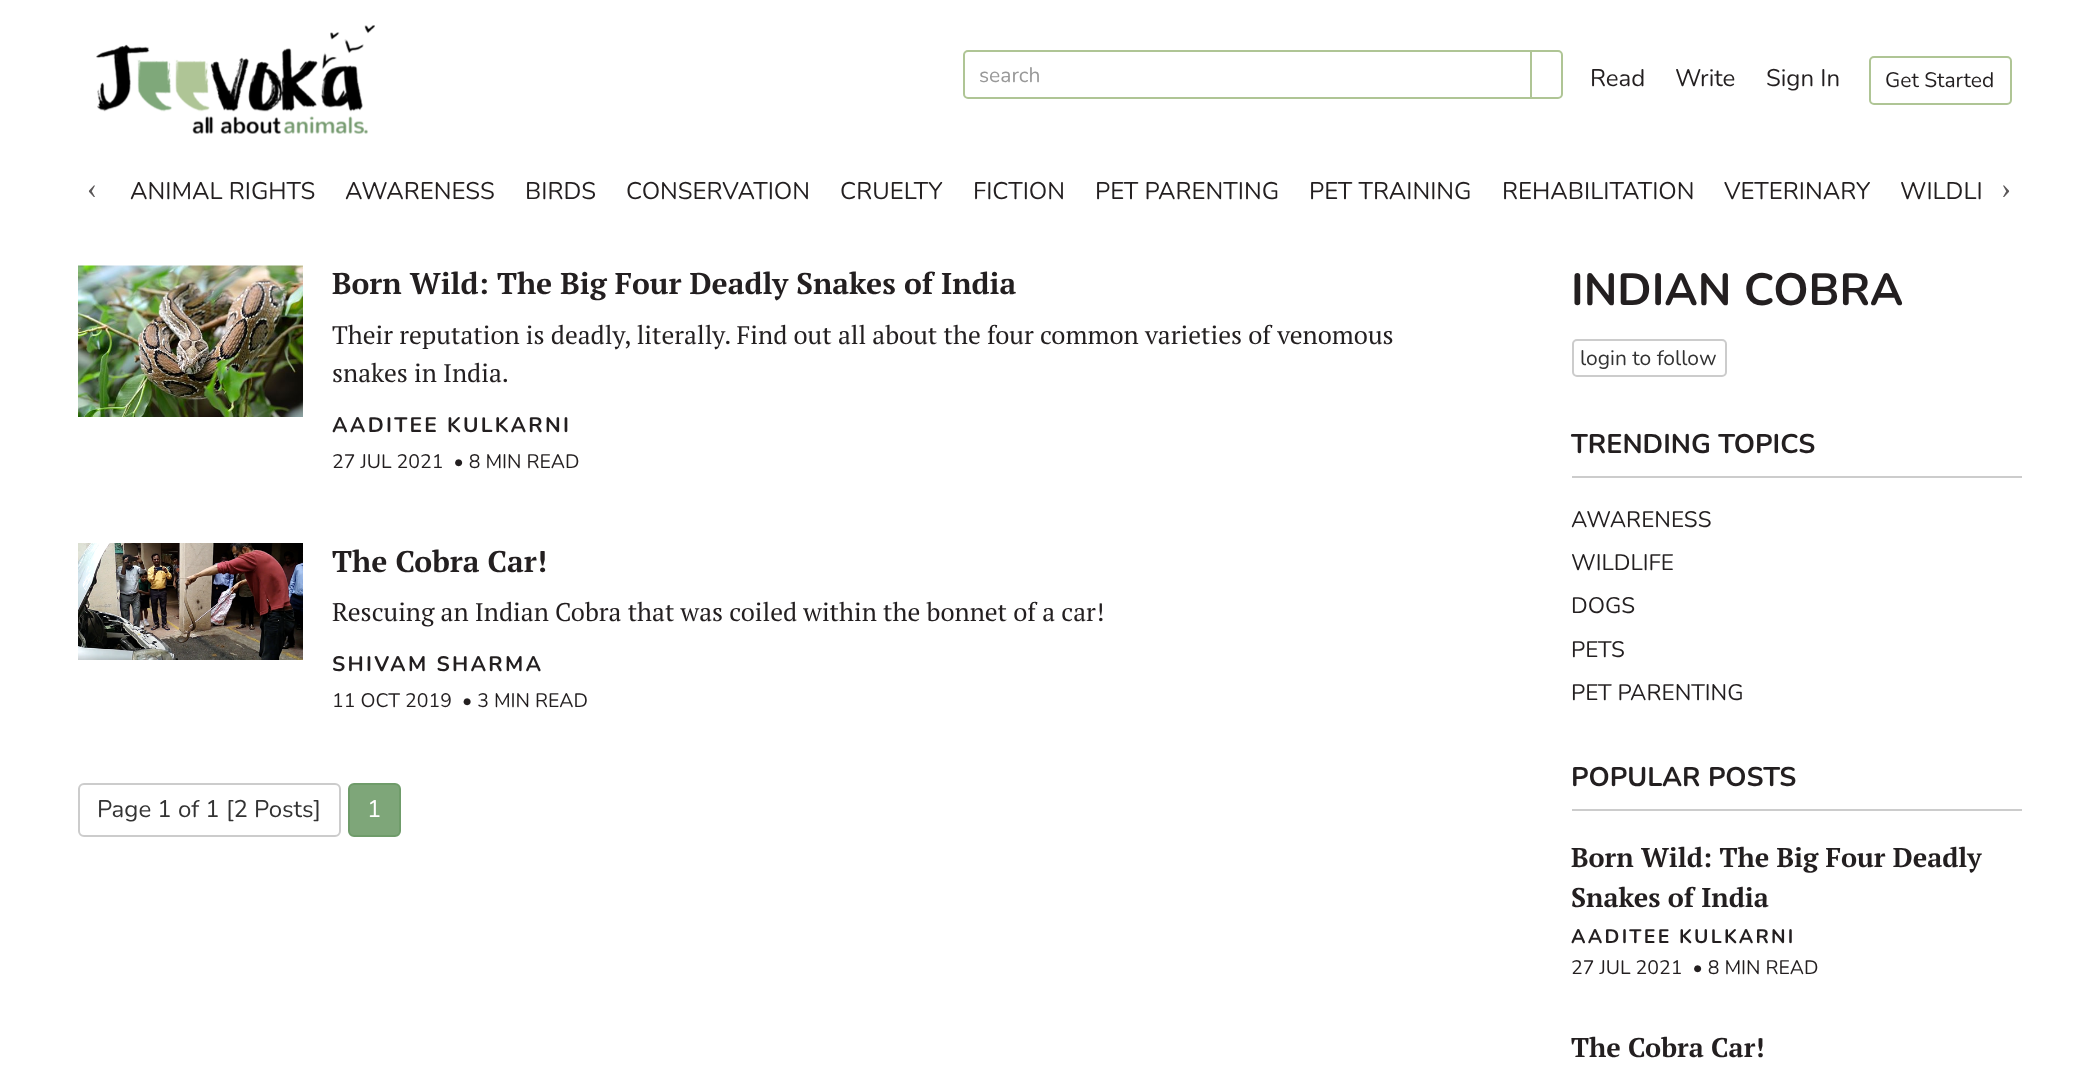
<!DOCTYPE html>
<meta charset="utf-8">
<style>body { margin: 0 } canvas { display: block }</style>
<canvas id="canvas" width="2098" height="1065"></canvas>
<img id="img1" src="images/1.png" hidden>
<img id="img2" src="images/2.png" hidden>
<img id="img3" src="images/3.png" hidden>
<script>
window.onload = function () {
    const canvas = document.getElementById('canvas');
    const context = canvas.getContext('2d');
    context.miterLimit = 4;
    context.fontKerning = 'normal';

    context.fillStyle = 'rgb(255, 255, 255)';
    context.fillRect(0, 0, 2098, 1065);
    context.drawImage(document.getElementById('img1'), 96, 25, 279, 109);
    context.beginPath();
    context.roundRect(964, 51, 567, 47, [4, 0, 0, 4]);
    context.strokeStyle = 'rgb(175, 197, 149)';
    context.lineWidth = 2;
    context.stroke();
    context.beginPath();
    context.roundRect(1531, 51, 31, 47, [0, 4, 4, 0]);
    context.fill();
    context.stroke();
    context.beginPath();
    context.roundRect(1870, 57, 141, 47, 4);
    context.stroke();
    context.drawImage(document.getElementById('img2'), 78, 265, 225, 152);
    context.drawImage(document.getElementById('img3'), 78, 543, 225, 117);
    context.beginPath();
    context.roundRect(79, 784, 261, 52, 5);
    context.strokeStyle = 'rgb(204, 204, 204)';
    context.stroke();
    context.fillStyle = 'rgb(126, 166, 121)';
    context.beginPath();
    context.roundRect(349, 784, 51, 52, 5);
    context.fill();
    context.strokeStyle = 'rgb(111, 156, 106)';
    context.stroke();
    context.beginPath();
    context.roundRect(1573, 340, 153, 36, 4);
    context.strokeStyle = 'rgb(204, 204, 204)';
    context.stroke();
    context.fillStyle = 'rgb(204, 204, 204)';
    context.fillRect(1572, 476, 450, 2);
    context.fillRect(1572, 809, 450, 2);
    context.font = '21px Nunito';
    context.fillStyle = 'rgb(153, 153, 153)';
    context.fillText('search', 979, 82);
    context.font = '24px Nunito';
    context.fillStyle = 'rgb(35, 31, 32)';
    context.fillText('Read', 1590, 86);
    context.fillText('Write', 1675, 86);
    context.fillText('Sign In', 1766, 86);
    context.font = '21px Nunito';
    context.fillText('Get Started', 1885, 87);
    context.font = '30px Liberation Serif';
    context.fillStyle = 'rgb(90, 87, 88)';
    context.fillText('‹', 87, 198);
    context.font = '24px Nunito';
    context.fillStyle = 'rgb(35, 31, 32)';
    context.fillText('ANIMAL RIGHTS', 130, 199);
    context.fillText('AWARENESS', 345, 199);
    context.fillText('BIRDS', 525, 199);
    context.fillText('CONSERVATION', 626, 199);
    context.fillText('CRUELTY', 840, 199);
    context.fillText('FICTION', 973, 199);
    context.fillText('PET PARENTING', 1095, 199);
    context.fillText('PET TRAINING', 1309, 199);
    context.fillText('REHABILITATION', 1502, 199);
    context.fillText('VETERINARY', 1724, 199);
    context.fillText('WILDLI', 1900, 199);
    context.font = '30px Liberation Serif';
    context.fillStyle = 'rgb(90, 87, 88)';
    context.fillText('›', 2001, 198);
    context.font = 'bold 30px PT Serif';
    context.fillStyle = 'rgb(35, 31, 32)';
    context.fillText('Born Wild: The Big Four Deadly Snakes of India', 332, 294);
    context.font = '25.5px PT Serif';
    context.fillText('Their reputation is deadly, literally. Find out all about the four common varieties of venomous', 332, 344);
    context.fillText('snakes in India.', 332, 382);
    context.letterSpacing = '2.25px';
    context.font = 'bold 21px Nunito';
    context.fillText('AADITEE KULKARNI', 332, 432);
    context.letterSpacing = '0px';
    context.font = '19.5px Nunito';
    context.fillText('27 JUL 2021  • 8 MIN READ', 332, 468);
    context.font = 'bold 30px PT Serif';
    context.fillText('The Cobra Car!', 332, 572);
    context.font = '25.5px PT Serif';
    context.fillText('Rescuing an Indian Cobra that was coiled within the bonnet of a car!', 332, 621);
    context.letterSpacing = '2.25px';
    context.font = 'bold 21px Nunito';
    context.fillText('SHIVAM SHARMA', 332, 671);
    context.letterSpacing = '0px';
    context.font = '19.5px Nunito';
    context.fillText('11 OCT 2019  • 3 MIN READ', 332, 707);
    context.font = '24px Nunito';
    context.fillStyle = 'rgb(51, 51, 51)';
    context.fillText('Page 1 of 1 [2 Posts]', 97, 817);
    context.fillStyle = 'rgb(255, 255, 255)';
    context.fillText('1', 367, 817);
    context.font = 'bold 45px Nunito';
    context.fillStyle = 'rgb(35, 31, 32)';
    context.fillText('INDIAN COBRA', 1571, 305);
    context.font = '21px Nunito';
    context.fillStyle = 'rgb(51, 51, 51)';
    context.fillText('login to follow', 1580, 365);
    context.font = 'bold 27px Nunito';
    context.fillStyle = 'rgb(35, 31, 32)';
    context.fillText('TRENDING TOPICS', 1571, 453);
    context.font = '22.5px Nunito';
    context.fillText('AWARENESS', 1571, 527);
    context.fillText('WILDLIFE', 1571, 570);
    context.fillText('DOGS', 1571, 613);
    context.fillText('PETS', 1571, 657);
    context.fillText('PET PARENTING', 1571, 700);
    context.font = 'bold 27px Nunito';
    context.fillText('POPULAR POSTS', 1571, 786);
    context.font = 'bold 27px PT Serif';
    context.fillText('Born Wild: The Big Four Deadly', 1571, 867);
    context.fillText('Snakes of India', 1571, 907);
    context.letterSpacing = '2.25px';
    context.font = 'bold 19.5px Nunito';
    context.fillText('AADITEE KULKARNI', 1571, 943);
    context.letterSpacing = '0px';
    context.font = '19.5px Nunito';
    context.fillText('27 JUL 2021  • 8 MIN READ', 1571, 974);
    context.font = 'bold 27px PT Serif';
    context.fillText('The Cobra Car!', 1571, 1057);
};
</script>
